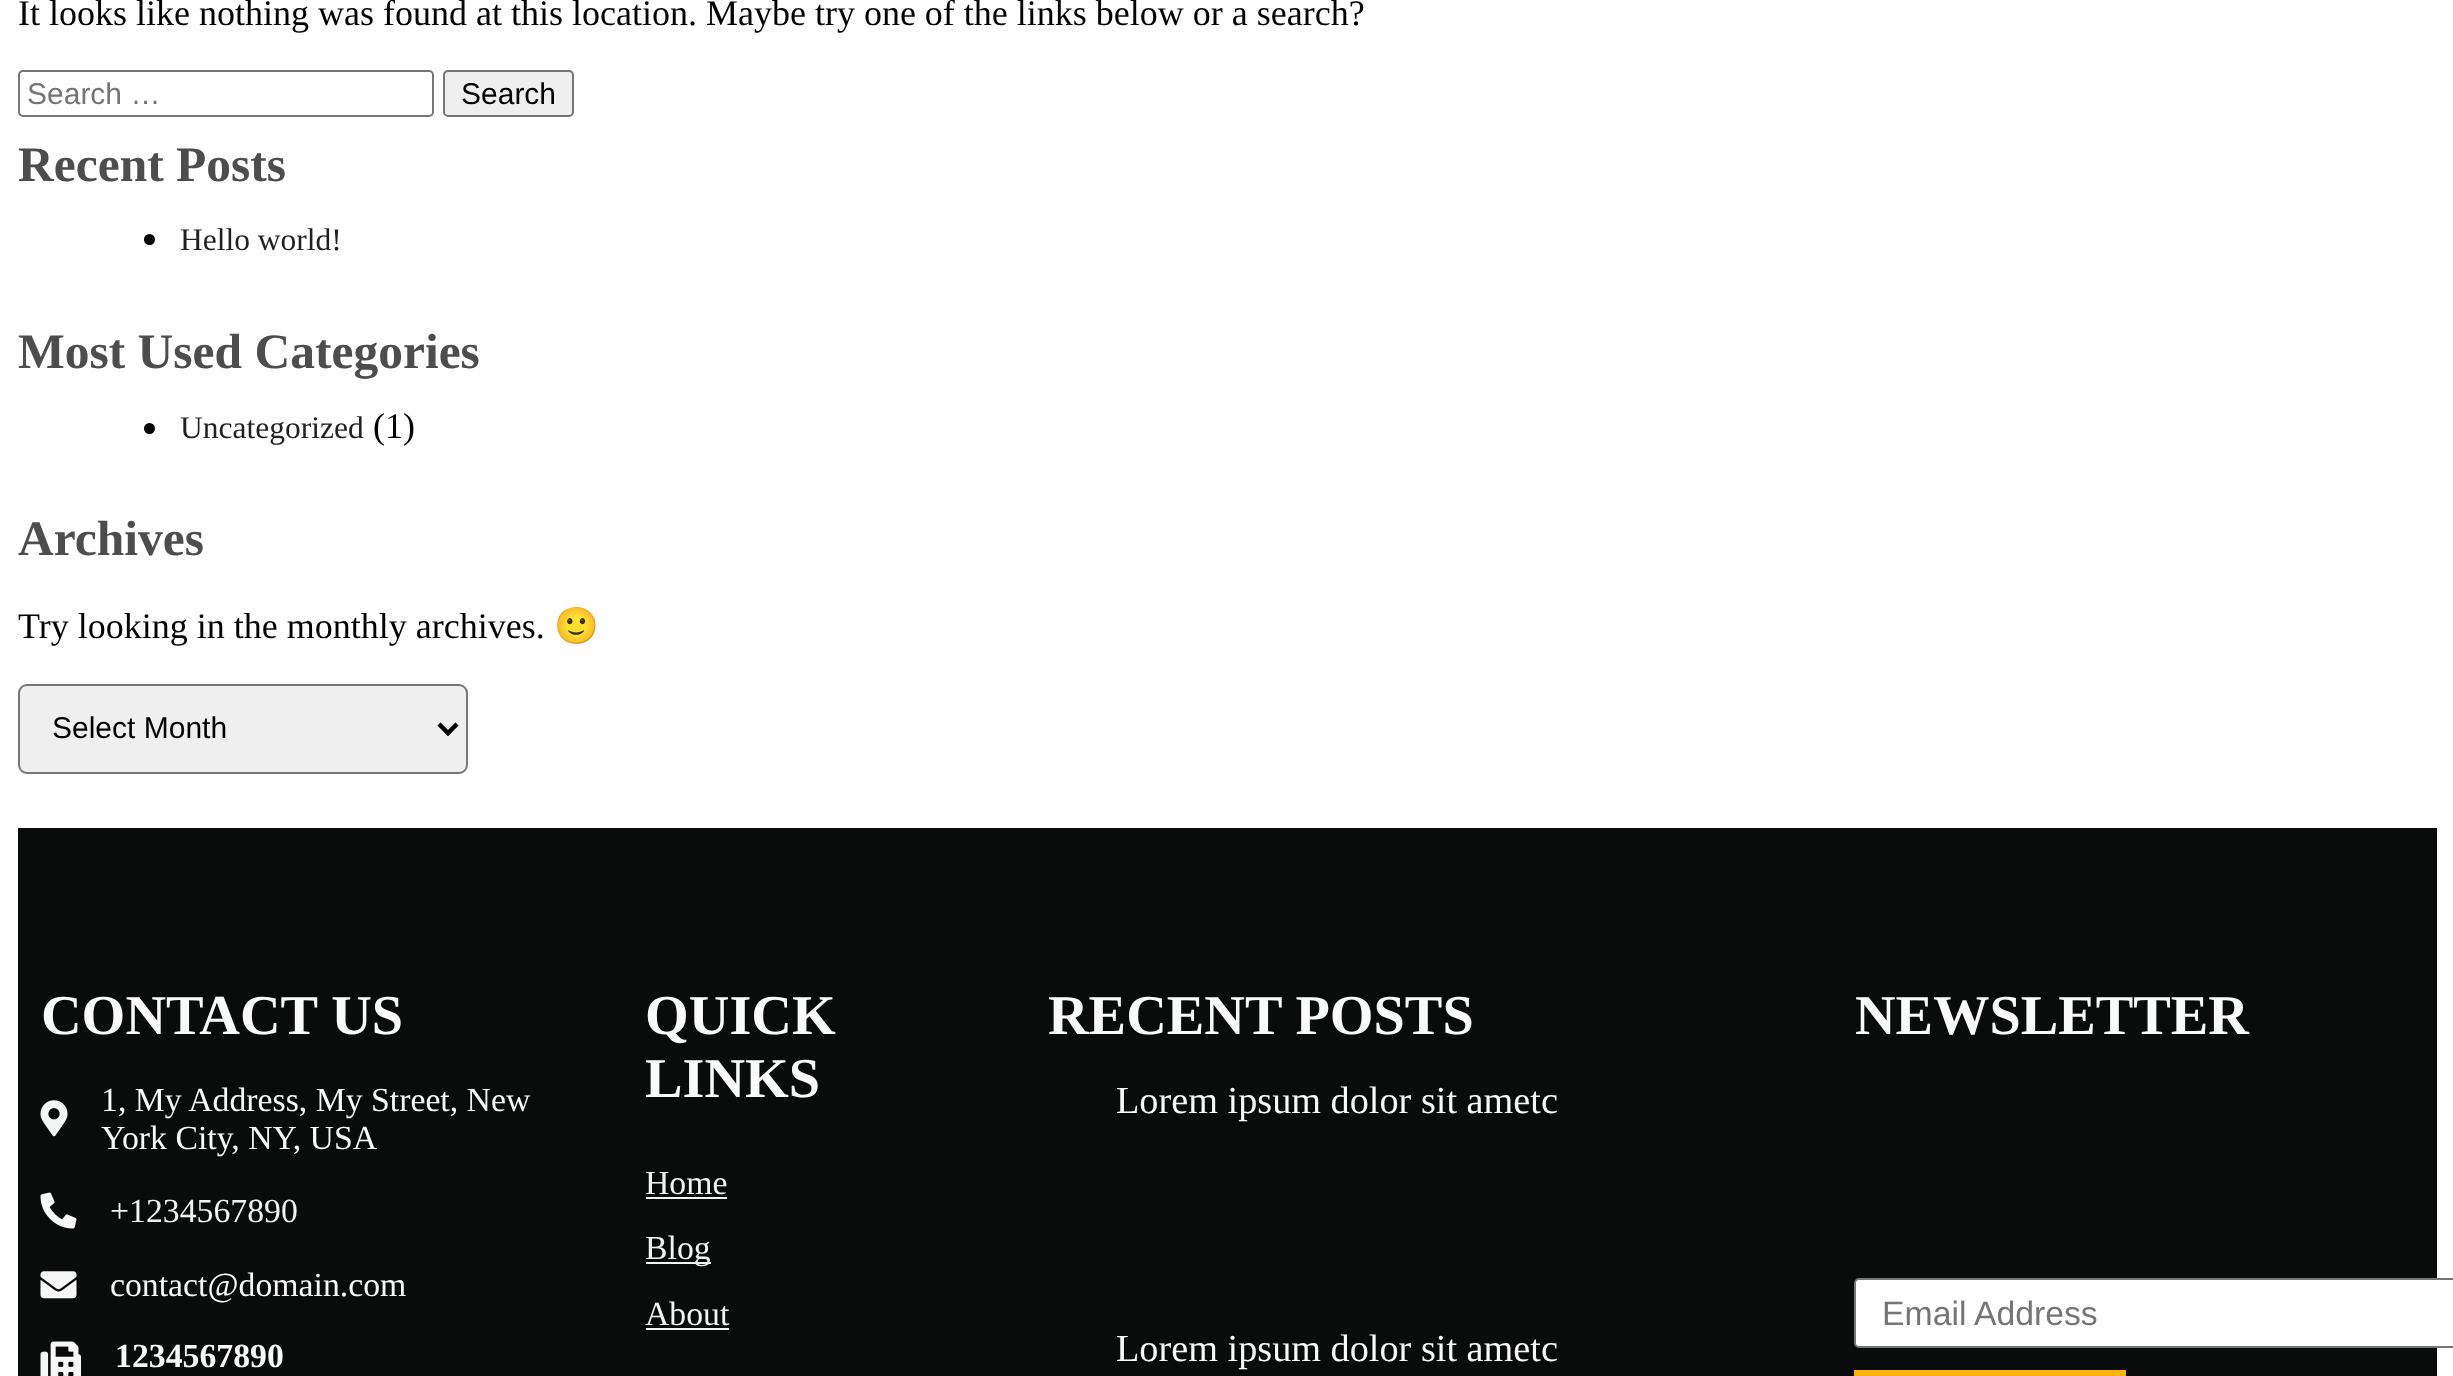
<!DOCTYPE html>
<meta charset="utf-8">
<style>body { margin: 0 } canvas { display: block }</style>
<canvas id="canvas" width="2453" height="1376"></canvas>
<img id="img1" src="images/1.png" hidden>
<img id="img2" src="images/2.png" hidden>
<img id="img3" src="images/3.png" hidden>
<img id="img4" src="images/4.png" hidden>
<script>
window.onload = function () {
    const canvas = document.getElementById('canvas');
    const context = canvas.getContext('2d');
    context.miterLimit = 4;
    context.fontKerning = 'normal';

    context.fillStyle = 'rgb(255, 255, 255)';
    context.fillRect(0, 0, 2453, 1376);
    context.beginPath();
    context.roundRect(19, 71, 414, 45, 4);
    context.strokeStyle = 'rgb(118, 118, 118)';
    context.lineWidth = 2;
    context.stroke();
    context.fillStyle = 'rgb(239, 239, 239)';
    context.beginPath();
    context.roundRect(444, 71, 129, 45, 4);
    context.fill();
    context.stroke();
    context.fillStyle = 'rgb(0, 0, 0)';
    context.beginPath();
    context.arc(149.5, 239.5, 5.5, 0, 2 * Math.PI);
    context.fill();
    context.beginPath();
    context.arc(149.5, 428.5, 5.5, 0, 2 * Math.PI);
    context.fill();
    context.fillStyle = 'rgb(239, 239, 239)';
    context.beginPath();
    context.roundRect(19, 685, 448, 88, 8);
    context.fill();
    context.stroke();
    context.beginPath();
    context.moveTo(439, 724);
    context.lineTo(448, 733);
    context.lineTo(457, 724);
    context.strokeStyle = 'rgb(0, 0, 0)';
    context.lineWidth = 4.5;
    context.stroke();
    context.fillStyle = 'rgb(10, 11, 11)';
    context.fillRect(18, 828, 2419, 548);
    context.drawImage(document.getElementById('img1'), 40, 1100, 28, 37);
    context.drawImage(document.getElementById('img2'), 40, 1192, 37, 37);
    context.drawImage(document.getElementById('img3'), 40, 1271, 37, 28);
    context.drawImage(document.getElementById('img4'), 40, 1341, 41, 35);
    context.fillStyle = 'rgb(243, 244, 244)';
    context.fillRect(646, 1197, 81, 2);
    context.fillRect(646, 1262, 65, 2);
    context.fillRect(646, 1328, 83, 2);
    context.fillStyle = 'rgb(255, 255, 255)';
    context.beginPath();
    context.roundRect(1855, 1279, 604, 68, 4);
    context.fill();
    context.strokeStyle = 'rgb(118, 118, 118)';
    context.lineWidth = 2;
    context.stroke();
    context.fillStyle = 'rgb(254, 178, 9)';
    context.fillRect(1854, 1370, 272, 6);
    context.font = '36px Liberation Serif';
    context.fillStyle = 'rgb(0, 0, 0)';
    context.fillText('It looks like nothing was found at this location. Maybe try one of the links below or a search?', 18, 25);
    context.font = '30px Liberation Sans';
    context.fillStyle = 'rgb(117, 117, 117)';
    context.fillText('Search …', 27, 104);
    context.fillStyle = 'rgb(0, 0, 0)';
    context.fillText('Search', 461, 104);
    context.font = 'bold 49.5px Liberation Serif';
    context.fillStyle = 'rgb(77, 77, 77)';
    context.fillText('Recent Posts', 18, 181);
    context.font = '31.5px Liberation Serif';
    context.fillStyle = 'rgb(33, 33, 33)';
    context.fillText('Hello world!', 180, 250);
    context.font = 'bold 49.5px Liberation Serif';
    context.fillStyle = 'rgb(77, 77, 77)';
    context.fillText('Most Used Categories', 18, 368);
    context.font = '31.5px Liberation Serif';
    context.fillStyle = 'rgb(33, 33, 33)';
    context.fillText('Uncategorized', 180, 438);
    context.font = '36px Liberation Serif';
    context.fillStyle = 'rgb(0, 0, 0)';
    context.fillText('(1)', 373, 438);
    context.font = 'bold 49.5px Liberation Serif';
    context.fillStyle = 'rgb(77, 77, 77)';
    context.fillText('Archives', 18, 555);
    context.font = '36px Liberation Serif';
    context.fillStyle = 'rgb(0, 0, 0)';
    context.fillText('Try looking in the monthly archives.', 18, 638);
    context.font = '36px Noto Color Emoji';
    context.fillText('🙂', 554, 638);
    context.font = '30px Liberation Sans';
    context.fillText('Select Month', 52, 738);
    context.font = 'bold 56.25px Liberation Serif';
    context.fillStyle = 'rgb(250, 250, 250)';
    context.fillText('CONTACT US', 41, 1034);
    context.font = '33.75px Liberation Serif';
    context.fillText('1, My Address, My Street, New', 101, 1111);
    context.fillText('York City, NY, USA', 101, 1149);
    context.fillStyle = 'rgb(242, 242, 242)';
    context.fillText('+1234567890', 110, 1222);
    context.fillStyle = 'rgb(250, 250, 250)';
    context.fillText('contact@domain.com', 110, 1296);
    context.font = 'bold 33.75px Liberation Serif';
    context.fillText('1234567890', 115, 1367);
    context.font = 'bold 56.25px Liberation Serif';
    context.fillText('QUICK', 645, 1034);
    context.fillText('LINKS', 645, 1097);
    context.font = '33.75px Liberation Serif';
    context.fillStyle = 'rgb(242, 242, 242)';
    context.fillText('Home', 645, 1194);
    context.fillText('Blog', 645, 1259);
    context.fillText('About', 645, 1325);
    context.font = 'bold 56.25px Liberation Serif';
    context.fillStyle = 'rgb(250, 250, 250)';
    context.fillText('RECENT POSTS', 1048, 1034);
    context.font = '38.25px Liberation Serif';
    context.fillText('Lorem ipsum dolor sit ametc', 1116, 1113);
    context.fillText('Lorem ipsum dolor sit ametc', 1116, 1361);
    context.font = 'bold 56.25px Liberation Serif';
    context.fillText('NEWSLETTER', 1855, 1034);
    context.font = '33.75px Liberation Sans';
    context.fillStyle = 'rgb(117, 117, 117)';
    context.fillText('Email Address', 1882, 1325);
};
</script>
